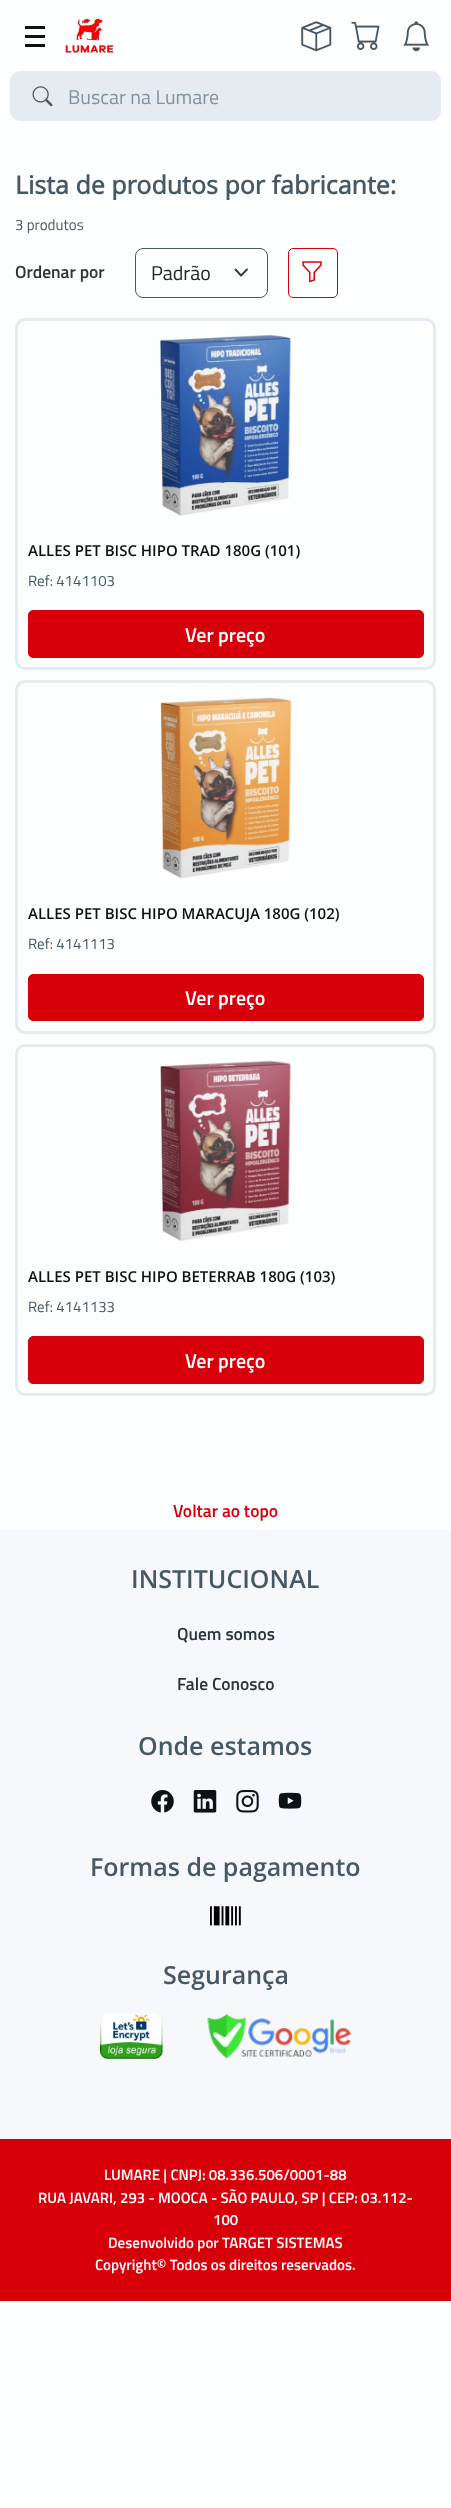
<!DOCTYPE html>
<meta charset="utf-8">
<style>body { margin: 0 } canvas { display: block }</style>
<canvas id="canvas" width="451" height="2508"></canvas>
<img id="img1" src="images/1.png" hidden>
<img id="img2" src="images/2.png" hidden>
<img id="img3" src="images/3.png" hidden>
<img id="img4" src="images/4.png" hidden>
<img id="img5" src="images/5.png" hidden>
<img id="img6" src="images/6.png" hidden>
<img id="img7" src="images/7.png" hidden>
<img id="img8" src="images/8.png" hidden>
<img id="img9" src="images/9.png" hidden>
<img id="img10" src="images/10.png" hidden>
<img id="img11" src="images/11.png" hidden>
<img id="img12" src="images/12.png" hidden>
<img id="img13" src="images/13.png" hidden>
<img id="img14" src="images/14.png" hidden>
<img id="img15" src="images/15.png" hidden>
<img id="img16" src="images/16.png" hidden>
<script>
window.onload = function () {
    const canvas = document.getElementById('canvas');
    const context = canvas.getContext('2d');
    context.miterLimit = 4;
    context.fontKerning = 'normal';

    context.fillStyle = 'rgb(253, 254, 254)';
    context.fillRect(0, 0, 451, 2508);
    context.fillStyle = 'rgb(12, 17, 20)';
    context.fillRect(25, 26, 20, 3);
    context.fillRect(25, 35, 20, 3);
    context.fillRect(25, 44, 20, 3);
    context.drawImage(document.getElementById('img1'), 65, 17, 49, 37);
    context.drawImage(document.getElementById('img2'), 301, 21, 31, 31);
    context.drawImage(document.getElementById('img3'), 351, 21, 29, 29);
    context.drawImage(document.getElementById('img4'), 403, 21, 27, 31);
    context.fillStyle = 'rgb(230, 235, 241)';
    context.beginPath();
    context.roundRect(10, 71, 431, 50, 10);
    context.fill();
    context.drawImage(document.getElementById('img5'), 32, 86, 21, 21);
    context.beginPath();
    context.moveTo(235.5, 269.5);
    context.lineTo(241, 275.5);
    context.lineTo(247, 269.5);
    context.strokeStyle = 'rgb(52, 58, 64)';
    context.lineWidth = 1.9;
    context.lineCap = 'round';
    context.lineJoin = 'round';
    context.stroke();
    context.beginPath();
    context.roundRect(135.5, 248.5, 132, 49, 7.5);
    context.strokeStyle = 'rgb(71, 88, 101)';
    context.lineWidth = 1;
    context.lineJoin = 'miter';
    context.stroke();
    context.beginPath();
    context.roundRect(288.5, 248.5, 49, 49, 4.5);
    context.strokeStyle = 'rgb(215, 0, 10)';
    context.stroke();
    context.drawImage(document.getElementById('img6'), 302, 261, 20, 22);
    context.beginPath();
    context.roundRect(16.5, 319.5, 418, 349, 8.5);
    context.strokeStyle = 'rgb(230, 235, 241)';
    context.lineWidth = 3;
    context.stroke();
    context.drawImage(document.getElementById('img7'), 159, 334, 132, 182);
    context.fillStyle = 'rgb(215, 0, 10)';
    context.beginPath();
    context.roundRect(28.5, 610.5, 395, 47, 4.5);
    context.fill();
    context.strokeStyle = 'rgb(215, 0, 10)';
    context.lineWidth = 1;
    context.stroke();
    context.beginPath();
    context.roundRect(16.5, 681.5, 418, 351, 8.5);
    context.strokeStyle = 'rgb(230, 235, 241)';
    context.lineWidth = 3;
    context.stroke();
    context.drawImage(document.getElementById('img8'), 160, 697, 132, 182);
    context.beginPath();
    context.roundRect(28.5, 974.5, 395, 46, 4.5);
    context.fill();
    context.strokeStyle = 'rgb(215, 0, 10)';
    context.lineWidth = 1;
    context.stroke();
    context.beginPath();
    context.roundRect(16.5, 1045.5, 418, 349, 8.5);
    context.strokeStyle = 'rgb(230, 235, 241)';
    context.lineWidth = 3;
    context.stroke();
    context.drawImage(document.getElementById('img9'), 160, 1060, 131, 181);
    context.beginPath();
    context.roundRect(28.5, 1336.5, 395, 47, 4.5);
    context.fill();
    context.strokeStyle = 'rgb(215, 0, 10)';
    context.lineWidth = 1;
    context.stroke();
    context.fillStyle = 'rgb(246, 248, 252)';
    context.fillRect(0, 1530, 451, 609);
    context.drawImage(document.getElementById('img10'), 151, 1790, 23, 23);
    context.drawImage(document.getElementById('img11'), 193, 1790, 24, 23);
    context.drawImage(document.getElementById('img12'), 236, 1790, 23, 23);
    context.drawImage(document.getElementById('img13'), 278, 1792, 24, 17);
    context.drawImage(document.getElementById('img14'), 210, 1906, 31, 20);
    context.drawImage(document.getElementById('img15'), 100, 2013, 63, 46);
    context.drawImage(document.getElementById('img16'), 207, 2013, 145, 46);
    context.fillStyle = 'rgb(215, 0, 10)';
    context.fillRect(0, 2139, 451, 162);
    context.font = '20px Titillium Web';
    context.fillStyle = 'rgb(128, 147, 160)';
    context.fillText('Buscar na Lumare', 68, 104);
    context.font = 'bold 25px Open Sans';
    context.fillStyle = 'rgb(71, 88, 101)';
    context.fillText('Lista de produtos por fabricante:', 15, 194);
    context.font = '15px Titillium Web';
    context.fillText('3 produtos', 15, 230);
    context.font = '600 17.5px Titillium Web';
    context.fillStyle = 'rgb(51, 51, 51)';
    context.fillText('Ordenar por', 15, 278);
    context.font = '20px Titillium Web';
    context.fillStyle = 'rgb(33, 37, 41)';
    context.fillText('Padrão', 151, 280);
    context.font = '600 15px Open Sans';
    context.fillStyle = 'rgb(12, 17, 20)';
    context.fillText('ALLES PET BISC HIPO TRAD 180G (101)', 28, 556);
    context.font = '15px Titillium Web';
    context.fillStyle = 'rgb(71, 88, 101)';
    context.fillText('Ref: 4141103', 28, 586);
    context.font = '600 20px Titillium Web';
    context.fillStyle = 'rgb(253, 254, 254)';
    context.fillText('Ver preço', 185, 642);
    context.font = '600 15px Open Sans';
    context.fillStyle = 'rgb(12, 17, 20)';
    context.fillText('ALLES PET BISC HIPO MARACUJA 180G (102)', 28, 919);
    context.font = '15px Titillium Web';
    context.fillStyle = 'rgb(71, 88, 101)';
    context.fillText('Ref: 4141113', 28, 949);
    context.font = '600 20px Titillium Web';
    context.fillStyle = 'rgb(253, 254, 254)';
    context.fillText('Ver preço', 185, 1005);
    context.font = '600 15px Open Sans';
    context.fillStyle = 'rgb(12, 17, 20)';
    context.fillText('ALLES PET BISC HIPO BETERRAB 180G (103)', 28, 1282);
    context.font = '15px Titillium Web';
    context.fillStyle = 'rgb(71, 88, 101)';
    context.fillText('Ref: 4141133', 28, 1312);
    context.font = '600 20px Titillium Web';
    context.fillStyle = 'rgb(253, 254, 254)';
    context.fillText('Ver preço', 185, 1368);
    context.font = '600 17.5px Titillium Web';
    context.fillStyle = 'rgb(215, 0, 10)';
    context.fillText('Voltar ao topo', 173, 1517);
    context.font = '600 25px Open Sans';
    context.fillStyle = 'rgb(71, 88, 101)';
    context.fillText('INSTITUCIONAL', 131, 1588);
    context.font = '600 17.5px Titillium Web';
    context.fillStyle = 'rgb(43, 52, 59)';
    context.fillText('Quem somos', 177, 1640);
    context.fillText('Fale Conosco', 177, 1690);
    context.font = '600 25px Open Sans';
    context.fillStyle = 'rgb(71, 88, 101)';
    context.fillText('Onde estamos', 138, 1755);
    context.fillText('Formas de pagamento', 90, 1876);
    context.fillText('Segurança', 163, 1984);
    context.font = '600 15px Titillium Web';
    context.fillStyle = 'rgb(253, 254, 254)';
    context.fillText('LUMARE | CNPJ: 08.336.506/0001-88', 104, 2180);
    context.fillText('RUA JAVARI, 293 - MOOCA - SÃO PAULO, SP | CEP: 03.112-', 38, 2203);
    context.fillText('100', 213, 2225);
    context.fillText('Desenvolvido por TARGET SISTEMAS', 108, 2248);
    context.fillText('Copyright© Todos os direitos reservados.', 95, 2270);
};
</script>
